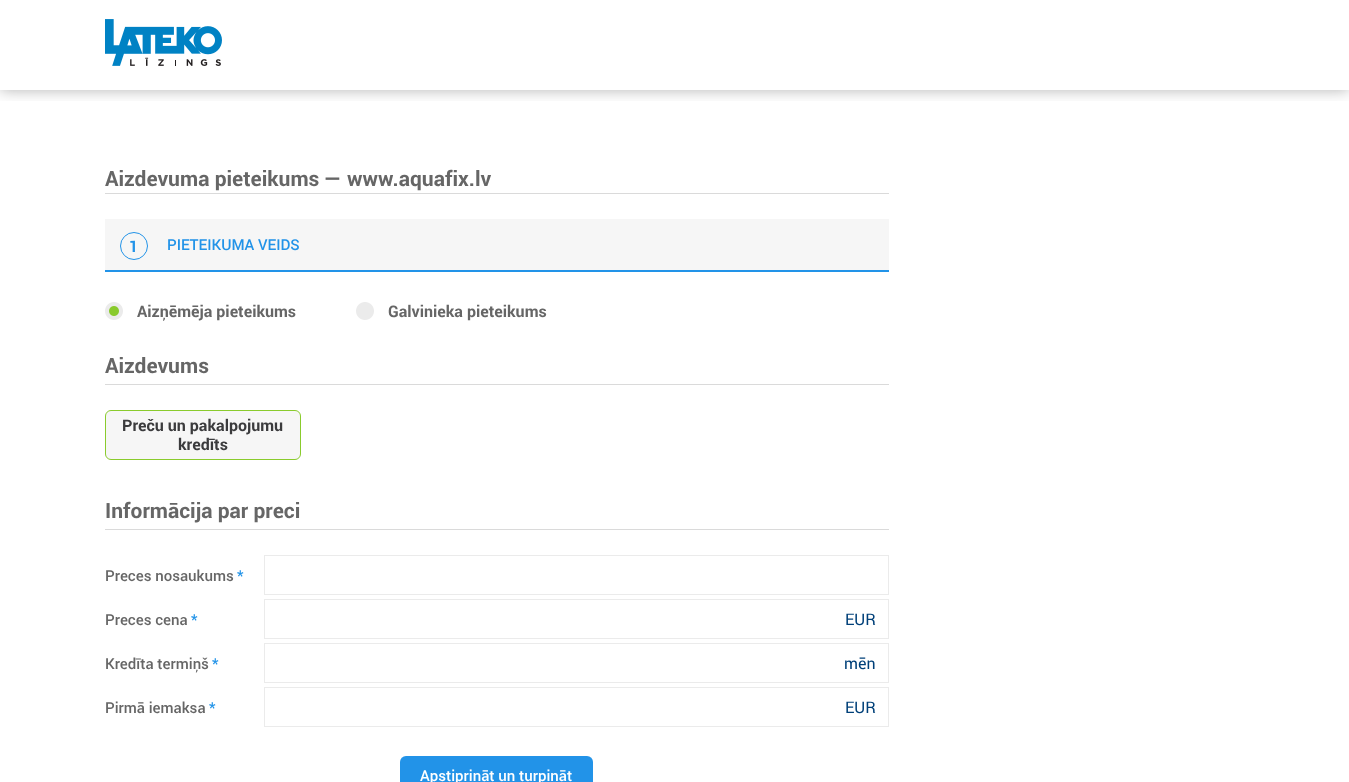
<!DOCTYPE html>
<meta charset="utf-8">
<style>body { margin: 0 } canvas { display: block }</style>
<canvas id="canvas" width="1349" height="782"></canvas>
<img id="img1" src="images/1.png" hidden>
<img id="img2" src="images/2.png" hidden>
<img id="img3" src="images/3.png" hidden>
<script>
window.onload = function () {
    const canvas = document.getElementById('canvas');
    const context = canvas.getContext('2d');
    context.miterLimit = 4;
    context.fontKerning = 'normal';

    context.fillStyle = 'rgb(255, 255, 255)';
    context.fillRect(0, 0, 1349, 782);
    context.save();
    context.beginPath();
    context.rect(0, 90, 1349, 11);
    context.clip();
    context.fillStyle = 'rgba(0, 0, 0, 0.3)';
    context.filter = 'blur(7.5px)';
    context.beginPath();
    context.rect(0, 0, 1349, 90);
    context.fill();
    context.filter = 'none';
    context.restore();
    context.drawImage(document.getElementById('img1'), 105, 19, 117, 47);
    context.fillStyle = 'rgb(218, 218, 218)';
    context.fillRect(105, 193, 784, 1);
    context.fillStyle = 'rgb(246, 246, 246)';
    context.fillRect(105, 219, 784, 51);
    context.fillStyle = 'rgb(34, 147, 232)';
    context.fillRect(105, 270, 784, 2);
    context.beginPath();
    context.arc(134, 246, 13.5, 0, 2 * Math.PI);
    context.strokeStyle = 'rgb(34, 147, 232)';
    context.stroke();
    context.drawImage(document.getElementById('img2'), 105, 302, 18, 18);
    context.drawImage(document.getElementById('img3'), 356, 302, 18, 18);
    context.fillStyle = 'rgb(218, 218, 218)';
    context.fillRect(105, 384, 784, 1);
    context.fillStyle = 'rgb(246, 246, 246)';
    context.beginPath();
    context.roundRect(105.5, 410.5, 195, 49, 5.5);
    context.fill();
    context.strokeStyle = 'rgb(138, 203, 45)';
    context.stroke();
    context.fillStyle = 'rgb(218, 218, 218)';
    context.fillRect(105, 529, 784, 1);
    context.strokeStyle = 'rgb(235, 235, 235)';
    context.strokeRect(264.5, 555.5, 624, 39);
    context.strokeRect(264.5, 599.5, 624, 39);
    context.strokeRect(264.5, 643.5, 624, 39);
    context.strokeRect(264.5, 687.5, 624, 39);
    context.fillStyle = 'rgb(34, 147, 232)';
    context.beginPath();
    context.roundRect(400, 756, 193, 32, 6);
    context.fill();
    context.font = 'bold 21px Roboto';
    context.fillStyle = 'rgb(102, 102, 102)';
    context.fillText('Aizdevuma pieteikums — www.aquafix.lv', 105, 186);
    context.font = 'bold 16px Roboto';
    context.fillStyle = 'rgb(34, 147, 232)';
    context.fillText('1', 129, 252);
    context.font = '500 15px Roboto';
    context.fillText('PIETEIKUMA VEIDS', 167, 250);
    context.font = 'bold 16px Roboto';
    context.fillStyle = 'rgb(102, 102, 102)';
    context.fillText('Aizņēmēja pieteikums', 137, 317);
    context.fillText('Galvinieka pieteikums', 388, 317);
    context.font = 'bold 21px Roboto';
    context.fillText('Aizdevums', 105, 373);
    context.font = 'bold 16px Roboto';
    context.fillStyle = 'rgb(59, 59, 61)';
    context.fillText('Preču un pakalpojumu', 122, 431);
    context.fillText('kredīts', 178, 450);
    context.font = 'bold 21px Roboto';
    context.fillStyle = 'rgb(102, 102, 102)';
    context.fillText('Informācija par preci', 105, 518);
    context.font = '500 15px Roboto';
    context.fillText('Preces nosaukums', 105, 581);
    context.fillStyle = 'rgb(34, 147, 232)';
    context.fillText('*', 237, 581);
    context.fillStyle = 'rgb(102, 102, 102)';
    context.fillText('Preces cena', 105, 625);
    context.fillStyle = 'rgb(34, 147, 232)';
    context.fillText('*', 191, 625);
    context.font = '16px Roboto';
    context.fillStyle = 'rgb(0, 64, 121)';
    context.fillText('EUR', 845, 625);
    context.font = '500 15px Roboto';
    context.fillStyle = 'rgb(102, 102, 102)';
    context.fillText('Kredīta termiņš', 105, 669);
    context.fillStyle = 'rgb(34, 147, 232)';
    context.fillText('*', 212, 669);
    context.font = '16px Roboto';
    context.fillStyle = 'rgb(0, 64, 121)';
    context.fillText('mēn', 844, 669);
    context.font = '500 15px Roboto';
    context.fillStyle = 'rgb(102, 102, 102)';
    context.fillText('Pirmā iemaksa', 105, 713);
    context.fillStyle = 'rgb(34, 147, 232)';
    context.fillText('*', 209, 713);
    context.font = '16px Roboto';
    context.fillStyle = 'rgb(0, 64, 121)';
    context.fillText('EUR', 845, 713);
    context.font = '500 15px Roboto';
    context.fillStyle = 'rgb(255, 255, 255)';
    context.fillText('Apstiprināt un turpināt', 420, 781);
};
</script>
